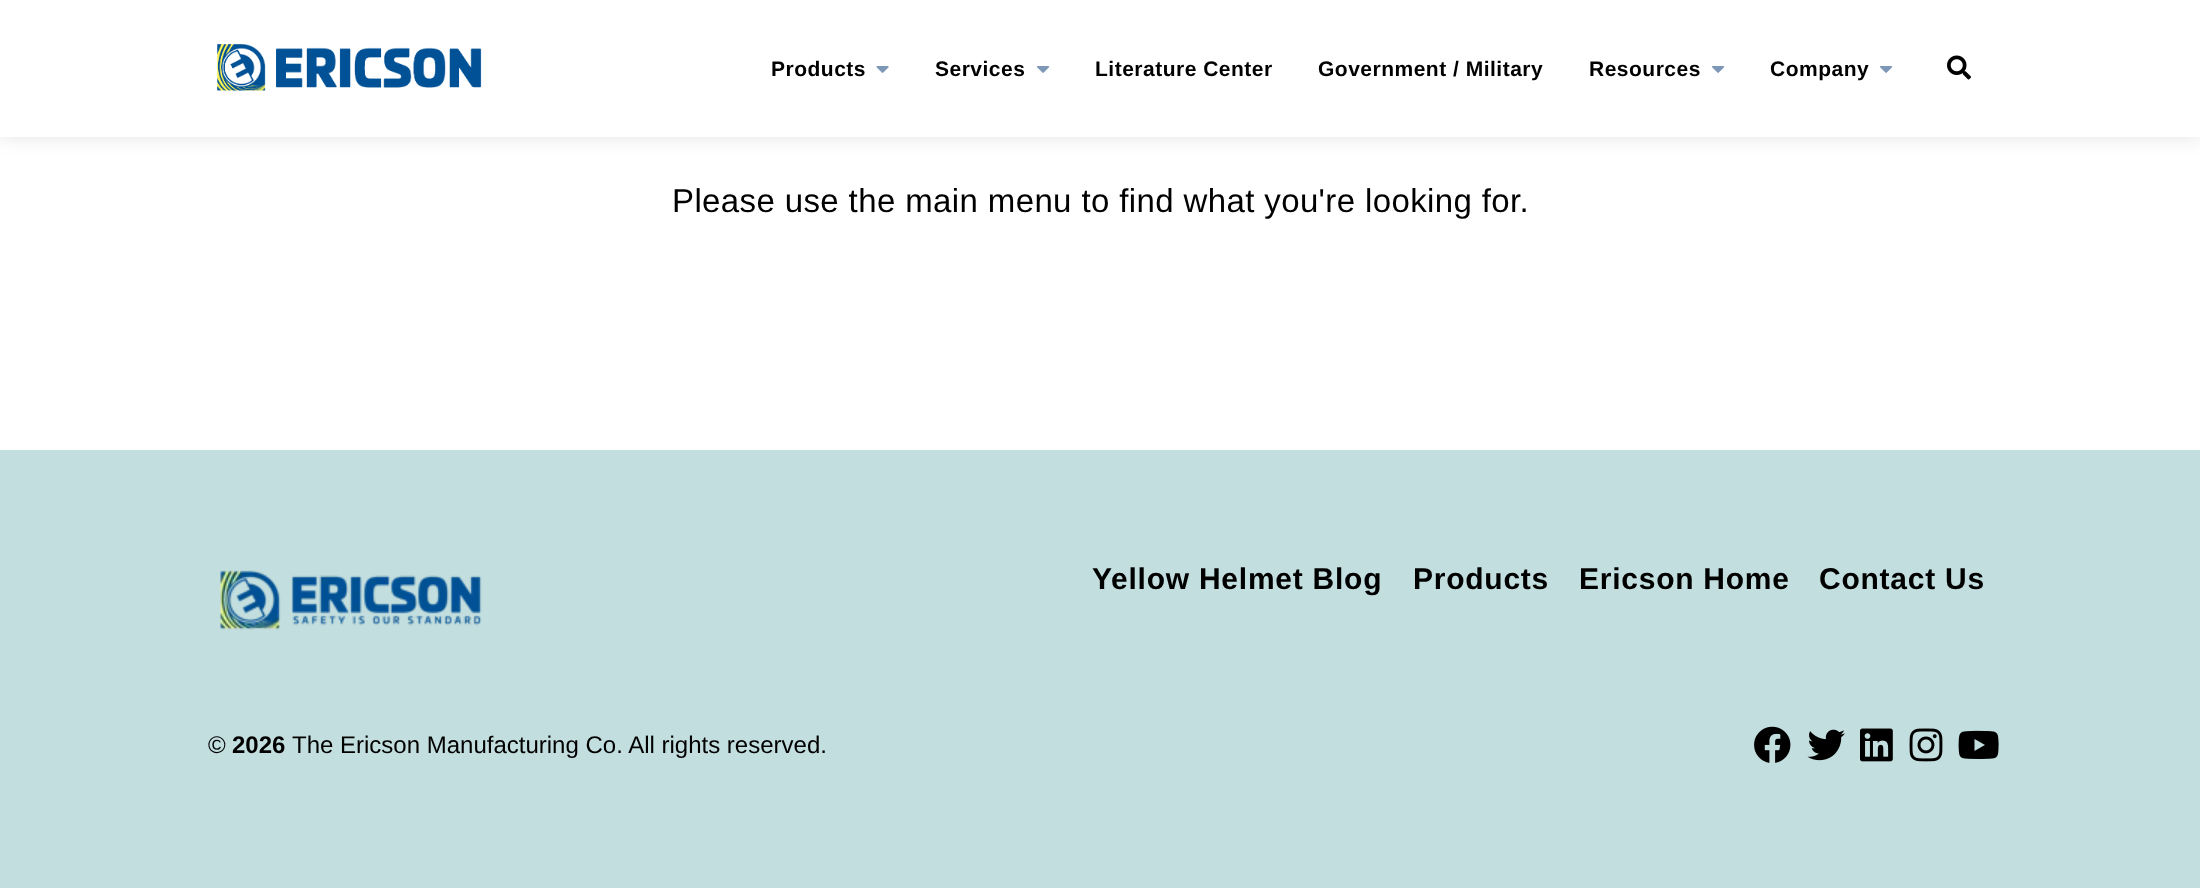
<!DOCTYPE html>
<meta charset="utf-8">
<style>body { margin: 0 } canvas { display: block }</style>
<canvas id="canvas" width="2200" height="888"></canvas>
<img id="img1" src="images/1.png" hidden>
<img id="img2" src="images/2.png" hidden>
<img id="img3" src="images/3.png" hidden>
<img id="img4" src="images/4.png" hidden>
<img id="img5" src="images/5.png" hidden>
<img id="img6" src="images/6.png" hidden>
<img id="img7" src="images/7.png" hidden>
<img id="img8" src="images/8.png" hidden>
<img id="img9" src="images/9.png" hidden>
<img id="img10" src="images/10.png" hidden>
<script>
window.onload = function () {
    const canvas = document.getElementById('canvas');
    const context = canvas.getContext('2d');
    context.miterLimit = 4;
    context.fontKerning = 'normal';

    context.fillStyle = 'rgb(255, 255, 255)';
    context.fillRect(0, 0, 2200, 888);
    context.fillStyle = 'rgba(0, 0, 0, 0.1)';
    context.filter = 'blur(9px)';
    context.beginPath();
    context.rect(0, 2, 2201, 136);
    context.fill();
    context.filter = 'none';
    context.fillStyle = 'rgb(255, 255, 255)';
    context.fillRect(0, 0, 2200, 137);
    context.drawImage(document.getElementById('img1'), 217, 44, 265, 47);
    context.drawImage(document.getElementById('img2'), 876, 66, 13, 7);
    context.drawImage(document.getElementById('img3'), 1037, 66, 13, 7);
    context.drawImage(document.getElementById('img3'), 1712, 66, 13, 7);
    context.drawImage(document.getElementById('img3'), 1880, 66, 13, 7);
    context.drawImage(document.getElementById('img4'), 1947, 55, 24, 25);
    context.fillStyle = 'rgb(195, 222, 222)';
    context.fillRect(0, 450, 2200, 438);
    context.drawImage(document.getElementById('img5'), 220, 570, 262, 60);
    context.drawImage(document.getElementById('img6'), 1754, 726, 37, 37);
    context.drawImage(document.getElementById('img7'), 1807, 729, 38, 32);
    context.drawImage(document.getElementById('img8'), 1860, 728, 33, 34);
    context.drawImage(document.getElementById('img9'), 1909, 728, 34, 34);
    context.drawImage(document.getElementById('img10'), 1958, 730, 41, 29);
    context.letterSpacing = '0.5px';
    context.font = 'bold 21px Liberation Sans';
    context.fillStyle = 'rgb(0, 0, 0)';
    context.fillText('Products', 771, 76);
    context.fillText('Services', 935, 76);
    context.fillText('Literature Center', 1095, 76);
    context.fillText('Government / Military', 1318, 76);
    context.fillText('Resources', 1589, 76);
    context.fillText('Company', 1770, 76);
    context.letterSpacing = '0.38px';
    context.font = '33px Liberation Sans';
    context.fillText('Please use the main menu to find what you\'re looking for.', 672, 212);
    context.letterSpacing = '0.75px';
    context.font = 'bold 30px Liberation Sans';
    context.fillText('Yellow Helmet Blog', 1092, 589);
    context.fillText('Products', 1413, 589);
    context.fillText('Ericson Home', 1579, 589);
    context.fillText('Contact Us', 1819, 589);
    context.letterSpacing = '0px';
    context.font = '24px Liberation Sans';
    context.fillText('©', 208, 753);
    context.font = 'bold 24px Liberation Sans';
    context.fillText('2026', 232, 753);
    context.font = '24px Liberation Sans';
    context.fillText('The Ericson Manufacturing Co. All rights reserved.', 292, 753);
};
</script>
